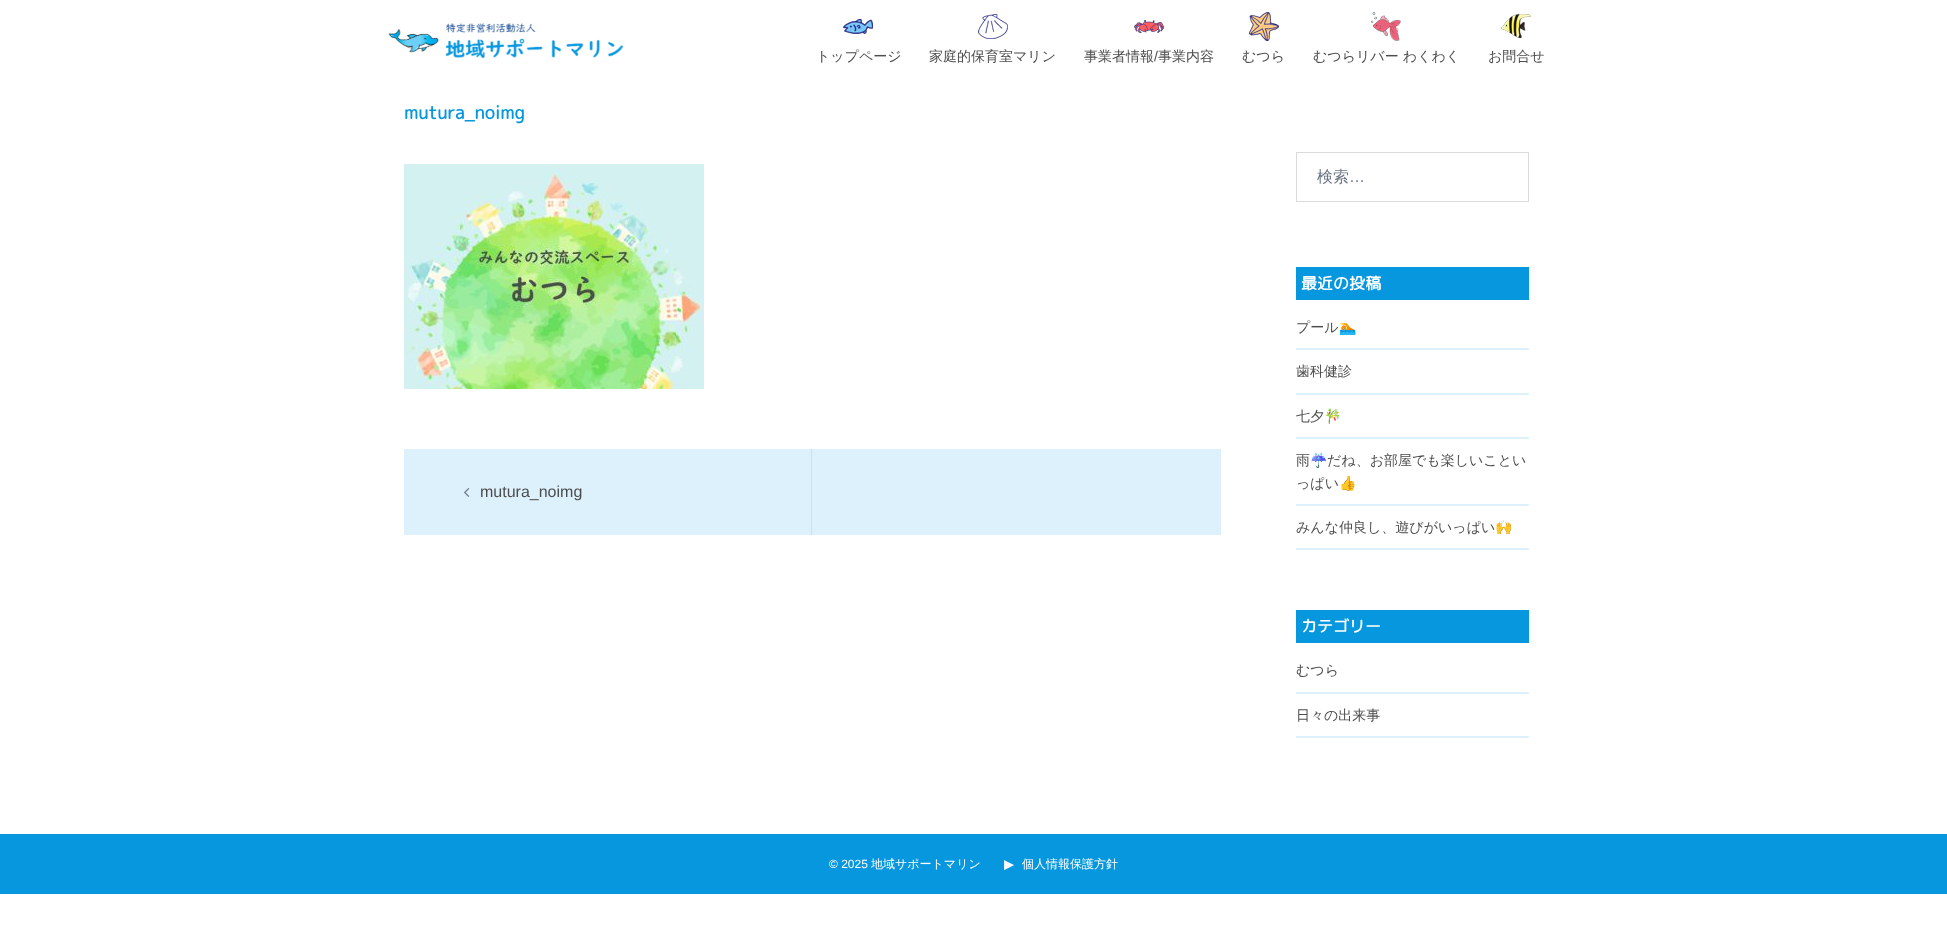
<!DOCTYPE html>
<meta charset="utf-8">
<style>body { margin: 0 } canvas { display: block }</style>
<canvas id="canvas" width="1947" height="948"></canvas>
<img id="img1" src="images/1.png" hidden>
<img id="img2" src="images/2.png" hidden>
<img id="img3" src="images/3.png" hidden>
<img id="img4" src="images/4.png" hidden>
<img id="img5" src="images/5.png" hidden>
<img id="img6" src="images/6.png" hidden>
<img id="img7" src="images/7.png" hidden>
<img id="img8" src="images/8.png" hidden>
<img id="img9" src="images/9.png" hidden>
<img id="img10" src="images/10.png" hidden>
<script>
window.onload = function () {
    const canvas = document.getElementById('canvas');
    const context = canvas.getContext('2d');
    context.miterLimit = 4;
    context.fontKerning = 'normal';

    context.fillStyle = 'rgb(255, 255, 255)';
    context.fillRect(0, 0, 1947, 948);
    context.drawImage(document.getElementById('img1'), 388, 23, 236, 36);
    context.drawImage(document.getElementById('img2'), 843, 19, 30, 15);
    context.drawImage(document.getElementById('img3'), 978, 14, 30, 25);
    context.drawImage(document.getElementById('img4'), 1134, 20, 30, 13);
    context.drawImage(document.getElementById('img5'), 1249, 12, 30, 29);
    context.drawImage(document.getElementById('img6'), 1371, 12, 30, 29);
    context.drawImage(document.getElementById('img7'), 1501, 14, 30, 24);
    context.drawImage(document.getElementById('img8'), 404, 164, 300, 225);
    context.fillStyle = 'rgb(220, 241, 251)';
    context.fillRect(404, 449, 817, 86);
    context.fillStyle = 'rgb(219, 219, 219)';
    context.fillRect(811, 449, 1, 86);
    context.drawImage(document.getElementById('img9'), 464, 488, 6, 9);
    context.strokeStyle = 'rgb(219, 219, 219)';
    context.strokeRect(1296.5, 152.5, 232, 49);
    context.fillStyle = 'rgb(7, 151, 222)';
    context.fillRect(1296, 267, 233, 33);
    context.fillStyle = 'rgb(220, 241, 251)';
    context.fillRect(1296, 348, 233, 2);
    context.fillRect(1296, 393, 233, 2);
    context.fillRect(1296, 437, 233, 2);
    context.fillRect(1296, 504, 233, 2);
    context.fillRect(1296, 548, 233, 2);
    context.fillStyle = 'rgb(7, 151, 222)';
    context.fillRect(1296, 610, 233, 33);
    context.fillStyle = 'rgb(220, 241, 251)';
    context.fillRect(1296, 692, 233, 2);
    context.fillRect(1296, 736, 233, 2);
    context.fillStyle = 'rgb(7, 151, 222)';
    context.fillRect(0, 834, 1947, 60);
    context.drawImage(document.getElementById('img10'), 1004, 860, 10, 10);
    context.font = '500 14px WenQuanYi Zen Hei';
    context.fillStyle = 'rgb(77, 77, 77)';
    context.fillText('トップページ', 816, 61);
    context.fillText('家庭的保育室マリン', 929, 61);
    context.fillText('事業者情報', 1084, 61);
    context.font = '14px Liberation Sans';
    context.fillText('/', 1154, 61);
    context.font = '500 14px WenQuanYi Zen Hei';
    context.fillText('事業内容', 1158, 61);
    context.fillText('むつら', 1242, 61);
    context.fillText('むつらリバー わくわく', 1313, 61);
    context.fillText('お問合せ', 1488, 61);
    context.font = 'bold 18px "Rounded Mplus 1c"';
    context.fillStyle = 'rgb(7, 151, 222)';
    context.fillText('mutura_noimg', 404, 119);
    context.font = '16px Liberation Sans';
    context.fillStyle = 'rgb(77, 77, 77)';
    context.fillText('mutura_noimg', 480, 497);
    context.font = '500 16px WenQuanYi Zen Hei';
    context.fillStyle = 'rgb(109, 118, 133)';
    context.fillText('検索', 1317, 182);
    context.font = '16px Liberation Sans';
    context.fillText('…', 1349, 182);
    context.font = 'bold 16px "Rounded Mplus 1c"';
    context.fillStyle = 'rgb(255, 255, 255)';
    context.fillText('最近の投稿', 1301, 289);
    context.font = '500 14px WenQuanYi Zen Hei';
    context.fillStyle = 'rgb(77, 77, 77)';
    context.fillText('プール', 1296, 332);
    context.font = '14px Noto Color Emoji';
    context.fillText('🏊', 1339, 332);
    context.font = '500 14px WenQuanYi Zen Hei';
    context.fillText('歯科健診', 1296, 376);
    context.fillText('七夕', 1296, 421);
    context.font = '14px Noto Color Emoji';
    context.fillText('🎋', 1324, 421);
    context.font = '500 14px WenQuanYi Zen Hei';
    context.fillText('雨', 1296, 465);
    context.font = '14px Noto Color Emoji';
    context.fillText('☔', 1310, 465);
    context.font = '500 14px WenQuanYi Zen Hei';
    context.fillText('だね、お部屋でも楽しいことい', 1327, 465);
    context.fillText('っぱい', 1296, 488);
    context.font = '14px Noto Color Emoji';
    context.fillText('👍', 1339, 488);
    context.font = '500 14px WenQuanYi Zen Hei';
    context.fillText('みんな仲良し、遊びがいっぱい', 1296, 532);
    context.font = '14px Noto Color Emoji';
    context.fillText('🙌', 1495, 532);
    context.font = 'bold 16px "Rounded Mplus 1c"';
    context.fillStyle = 'rgb(255, 255, 255)';
    context.fillText('カテゴリー', 1301, 632);
    context.font = '500 14px WenQuanYi Zen Hei';
    context.fillStyle = 'rgb(77, 77, 77)';
    context.fillText('むつら', 1296, 675);
    context.fillText('日々の出来事', 1296, 720);
    context.font = '12px Liberation Sans';
    context.fillStyle = 'rgb(255, 255, 255)';
    context.fillText('© 2025', 829, 868);
    context.font = '500 12px WenQuanYi Zen Hei';
    context.fillText('地域サポートマリン', 871, 868);
    context.fillText('個人情報保護方針', 1022, 868);
};
</script>
